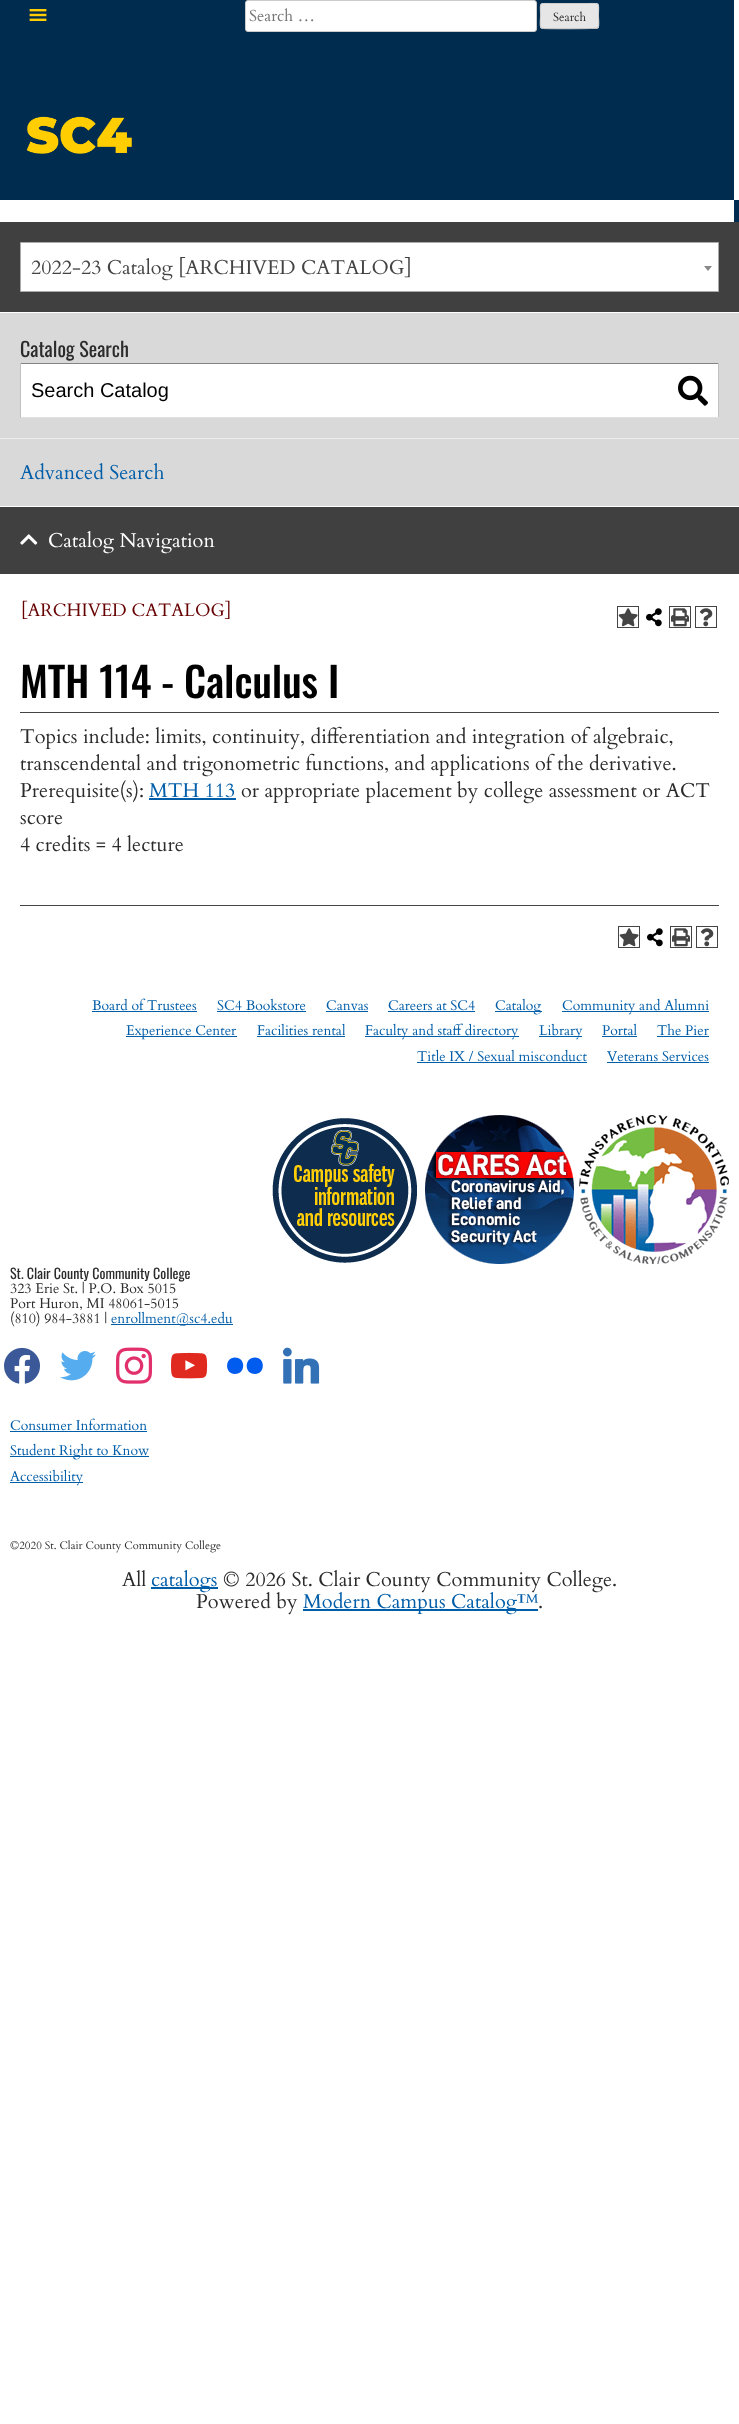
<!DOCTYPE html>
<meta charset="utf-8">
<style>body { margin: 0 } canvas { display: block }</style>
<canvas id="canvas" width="739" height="2424"></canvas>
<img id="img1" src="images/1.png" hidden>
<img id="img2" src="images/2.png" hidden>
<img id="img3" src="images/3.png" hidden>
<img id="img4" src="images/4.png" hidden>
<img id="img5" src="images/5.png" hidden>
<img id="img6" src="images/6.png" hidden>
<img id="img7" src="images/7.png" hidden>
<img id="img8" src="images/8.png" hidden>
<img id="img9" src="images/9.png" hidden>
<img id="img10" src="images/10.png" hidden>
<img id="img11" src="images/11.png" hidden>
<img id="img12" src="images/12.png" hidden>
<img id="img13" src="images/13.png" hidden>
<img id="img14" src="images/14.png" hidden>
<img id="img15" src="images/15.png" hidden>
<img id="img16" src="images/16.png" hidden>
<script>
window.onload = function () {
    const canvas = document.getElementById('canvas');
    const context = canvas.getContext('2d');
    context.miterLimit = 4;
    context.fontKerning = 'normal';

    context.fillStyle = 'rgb(255, 255, 255)';
    context.fillRect(0, 0, 739, 2424);
    context.fillStyle = 'rgb(0, 44, 79)';
    context.fillRect(0, 0, 734, 53);
    context.drawImage(document.getElementById('img1'), 29, 9, 18, 12);
    context.fillStyle = 'rgb(255, 255, 255)';
    context.beginPath();
    context.roundRect(245.5, 0.5, 291, 31, 2.5);
    context.fill();
    context.strokeStyle = 'rgb(204, 204, 204)';
    context.stroke();
    context.fillStyle = 'rgb(230, 230, 230)';
    context.beginPath();
    context.roundRect(540, 3, 59, 26, 3);
    context.fill();
    context.beginPath();
    context.moveTo(598, 28);
    context.lineTo(597.5, 28);
    context.bezierCurveTo(596.5, 29, 547.5, 29, 543, 28.5);
    context.lineTo(541, 28);
    context.strokeStyle = 'rgb(187, 187, 187)';
    context.stroke();
    context.beginPath();
    context.moveTo(541, 28);
    context.bezierCurveTo(539.5, 26, 540.5, 18.5, 540.5, 16);
    context.bezierCurveTo(540.5, 2, 538, 3.5, 552, 3.5);
    context.lineTo(587, 3.5);
    context.bezierCurveTo(601, 3.5, 598.5, 2, 598.5, 16);
    context.bezierCurveTo(598.5, 18.5, 599.5, 26, 598, 28);
    context.strokeStyle = 'rgb(204, 204, 204)';
    context.stroke();
    context.fillStyle = 'rgb(0, 44, 79)';
    context.fillRect(0, 53, 734, 147);
    context.drawImage(document.getElementById('img2'), 26, 116, 106, 38);
    context.fillRect(734, 200, 5, 22);
    context.fillStyle = 'rgb(64, 64, 64)';
    context.fillRect(0, 222, 739, 90);
    context.fillStyle = 'rgb(255, 255, 255)';
    context.beginPath();
    context.rect(20.5, 242.5, 698, 49);
    context.fill();
    context.strokeStyle = 'rgb(170, 170, 170)';
    context.stroke();
    context.fillStyle = 'rgb(136, 136, 136)';
    context.beginPath();
    context.moveTo(704, 266);
    context.lineTo(712, 266);
    context.lineTo(708, 271);
    context.closePath();
    context.fill();
    context.fillStyle = 'rgb(217, 217, 217)';
    context.fillRect(0, 313, 739, 193);
    context.fillStyle = 'rgb(255, 255, 255)';
    context.fillRect(21, 364, 697, 53);
    context.fillStyle = 'rgb(132, 132, 132)';
    context.fillRect(20, 363, 699, 1);
    context.fillStyle = 'rgb(193, 193, 193)';
    context.fillRect(718, 363, 1, 55);
    context.fillStyle = 'rgb(225, 225, 225)';
    context.fillRect(20, 417, 699, 1);
    context.fillStyle = 'rgb(193, 193, 193)';
    context.fillRect(20, 363, 1, 55);
    context.drawImage(document.getElementById('img3'), 678, 375, 30, 31);
    context.fillStyle = 'rgb(236, 236, 236)';
    context.fillRect(0, 438, 739, 1);
    context.fillStyle = 'rgb(64, 64, 64)';
    context.fillRect(0, 507, 739, 67);
    context.drawImage(document.getElementById('img4'), 20, 534, 18, 11);
    context.strokeStyle = 'rgb(68, 68, 68)';
    context.strokeRect(617.5, 606.5, 21, 21);
    context.drawImage(document.getElementById('img5'), 618, 608, 20, 19);
    context.drawImage(document.getElementById('img6'), 646, 608, 16, 19);
    context.strokeRect(669.5, 606.5, 21, 21);
    context.drawImage(document.getElementById('img7'), 671, 608, 18, 19);
    context.strokeRect(695.5, 606.5, 21, 21);
    context.drawImage(document.getElementById('img8'), 700, 608, 13, 19);
    context.fillStyle = 'rgb(68, 68, 68)';
    context.fillRect(20, 712, 699, 1);
    context.fillStyle = 'rgb(0, 93, 168)';
    context.fillRect(149, 798, 87, 2);
    context.fillStyle = 'rgb(68, 68, 68)';
    context.fillRect(20, 905, 699, 1);
    context.strokeRect(618.5, 926.5, 21, 21);
    context.drawImage(document.getElementById('img5'), 619, 928, 20, 19);
    context.drawImage(document.getElementById('img6'), 647, 928, 16, 19);
    context.strokeRect(670.5, 926.5, 21, 21);
    context.drawImage(document.getElementById('img7'), 672, 928, 18, 19);
    context.strokeRect(696.5, 926.5, 21, 21);
    context.drawImage(document.getElementById('img8'), 701, 928, 13, 19);
    context.fillStyle = 'rgb(0, 93, 168)';
    context.fillRect(92, 1011, 105, 1);
    context.fillRect(217, 1011, 89, 1);
    context.fillRect(326, 1011, 42, 1);
    context.fillRect(388, 1011, 87, 1);
    context.fillRect(495, 1011, 47, 1);
    context.fillRect(562, 1011, 147, 1);
    context.fillRect(126, 1036, 111, 1);
    context.fillRect(257, 1036, 88, 1);
    context.fillRect(365, 1036, 154, 1);
    context.fillRect(539, 1036, 43, 1);
    context.fillRect(602, 1036, 35, 1);
    context.fillRect(657, 1036, 52, 1);
    context.fillRect(417, 1062, 170, 1);
    context.fillRect(607, 1062, 102, 1);
    context.drawImage(document.getElementById('img9'), 272, 1118, 145, 145);
    context.drawImage(document.getElementById('img10'), 425, 1115, 149, 149);
    context.drawImage(document.getElementById('img11'), 579, 1115, 150, 149);
    context.fillRect(111, 1324, 122, 1);
    context.drawImage(document.getElementById('img12'), 4, 1347, 36, 37);
    context.drawImage(document.getElementById('img13'), 60, 1351, 36, 30);
    context.drawImage(document.getElementById('img14'), 116, 1347, 37, 37);
    context.drawImage(document.getElementById('img15'), 171, 1352, 37, 27);
    context.fillStyle = 'rgb(0, 91, 239)';
    context.beginPath();
    context.moveTo(235, 1374);
    context.bezierCurveTo(224.5, 1374, 224.5, 1357.5, 235, 1357.5);
    context.bezierCurveTo(246, 1357.5, 246, 1374, 235, 1374);
    context.closePath();
    context.moveTo(255, 1374);
    context.bezierCurveTo(244, 1374, 244, 1357.5, 255, 1357.5);
    context.bezierCurveTo(265.5, 1357.5, 265.5, 1374, 255, 1374);
    context.closePath();
    context.fill();
    context.drawImage(document.getElementById('img16'), 283, 1347, 37, 37);
    context.fillStyle = 'rgb(0, 93, 168)';
    context.fillRect(10, 1431, 137, 1);
    context.fillRect(10, 1456, 139, 1);
    context.fillRect(10, 1482, 73, 1);
    context.fillRect(151, 1587, 67, 2);
    context.fillRect(303, 1609, 235, 2);
    context.font = '16px Cardo';
    context.fillStyle = 'rgb(117, 117, 117)';
    context.fillText('Search …', 249, 21);
    context.font = '12px Cardo';
    context.fillStyle = 'rgb(43, 43, 43)';
    context.fillText('Search', 553, 21);
    context.font = '20px Cardo';
    context.fillStyle = 'rgb(68, 68, 68)';
    context.fillText('2022-23 Catalog [ARCHIVED CATALOG]', 31, 274);
    context.font = '20px Oswald';
    context.fillStyle = 'rgb(43, 43, 43)';
    context.fillText('Catalog Search', 20, 357);
    context.font = '20px Liberation Sans';
    context.fillStyle = 'rgb(0, 0, 0)';
    context.fillText('Search Catalog', 31, 397);
    context.font = '20px Cardo';
    context.fillStyle = 'rgb(0, 93, 168)';
    context.fillText('Advanced Search', 20, 479);
    context.fillStyle = 'rgb(255, 255, 255)';
    context.fillText('Catalog Navigation', 48, 547);
    context.font = '18px Cardo';
    context.fillStyle = 'rgb(102, 0, 0)';
    context.fillText('[ARCHIVED CATALOG]', 21, 616);
    context.font = '500 41px Oswald';
    context.fillStyle = 'rgb(0, 0, 0)';
    context.fillText('MTH 114 - Calculus I', 20, 698);
    context.font = '20px Cardo';
    context.fillStyle = 'rgb(43, 43, 43)';
    context.fillText('Topics include: limits, continuity, differentiation and integration of algebraic,', 20, 743);
    context.fillText('transcendental and trigonometric functions, and applications of the derivative.', 20, 770);
    context.fillText('Prerequisite(s):', 20, 797);
    context.fillStyle = 'rgb(0, 93, 168)';
    context.fillText('MTH 113', 149, 797);
    context.fillStyle = 'rgb(43, 43, 43)';
    context.fillText('or appropriate placement by college assessment or ACT', 241, 797);
    context.fillText('score', 20, 824);
    context.fillText('4 credits = 4 lecture', 20, 851);
    context.font = '14px Cardo';
    context.fillStyle = 'rgb(0, 93, 168)';
    context.fillText('Board of Trustees', 92, 1010);
    context.fillText('SC4 Bookstore', 217, 1010);
    context.fillText('Canvas', 326, 1010);
    context.fillText('Careers at SC4', 388, 1010);
    context.fillText('Catalog', 495, 1010);
    context.fillText('Community and Alumni', 562, 1010);
    context.fillText('Experience Center', 126, 1035);
    context.fillText('Facilities rental', 257, 1035);
    context.fillText('Faculty and staff directory', 365, 1035);
    context.fillText('Library', 539, 1035);
    context.fillText('Portal', 602, 1035);
    context.fillText('The Pier', 657, 1035);
    context.fillText('Title IX / Sexual misconduct', 417, 1061);
    context.fillText('Veterans Services', 607, 1061);
    context.font = '14px Oswald';
    context.fillStyle = 'rgb(43, 43, 43)';
    context.fillText('St. Clair County Community College', 10, 1279);
    context.font = '14px Cardo';
    context.fillText('323 Erie St. | P.O. Box 5015', 10, 1293);
    context.fillText('Port Huron, MI 48061-5015', 10, 1308);
    context.fillText('(810) 984-3881 |', 10, 1323);
    context.fillStyle = 'rgb(0, 93, 168)';
    context.fillText('enrollment@sc4.edu', 111, 1323);
    context.fillText('Consumer Information', 10, 1430);
    context.fillText('Student Right to Know', 10, 1455);
    context.fillText('Accessibility', 10, 1481);
    context.font = '11px Cardo';
    context.fillStyle = 'rgb(43, 43, 43)';
    context.fillText('©2020 St. Clair County Community College', 10, 1549);
    context.font = '20px Cardo';
    context.fillText('All', 122, 1586);
    context.fillStyle = 'rgb(0, 93, 168)';
    context.fillText('catalogs', 151, 1586);
    context.fillStyle = 'rgb(43, 43, 43)';
    context.fillText('© 2026 St. Clair County Community College.', 223, 1586);
    context.fillText('Powered by', 196, 1608);
    context.fillStyle = 'rgb(0, 93, 168)';
    context.fillText('Modern Campus Catalog™', 303, 1608);
    context.fillStyle = 'rgb(43, 43, 43)';
    context.fillText('.', 538, 1608);
};
</script>
